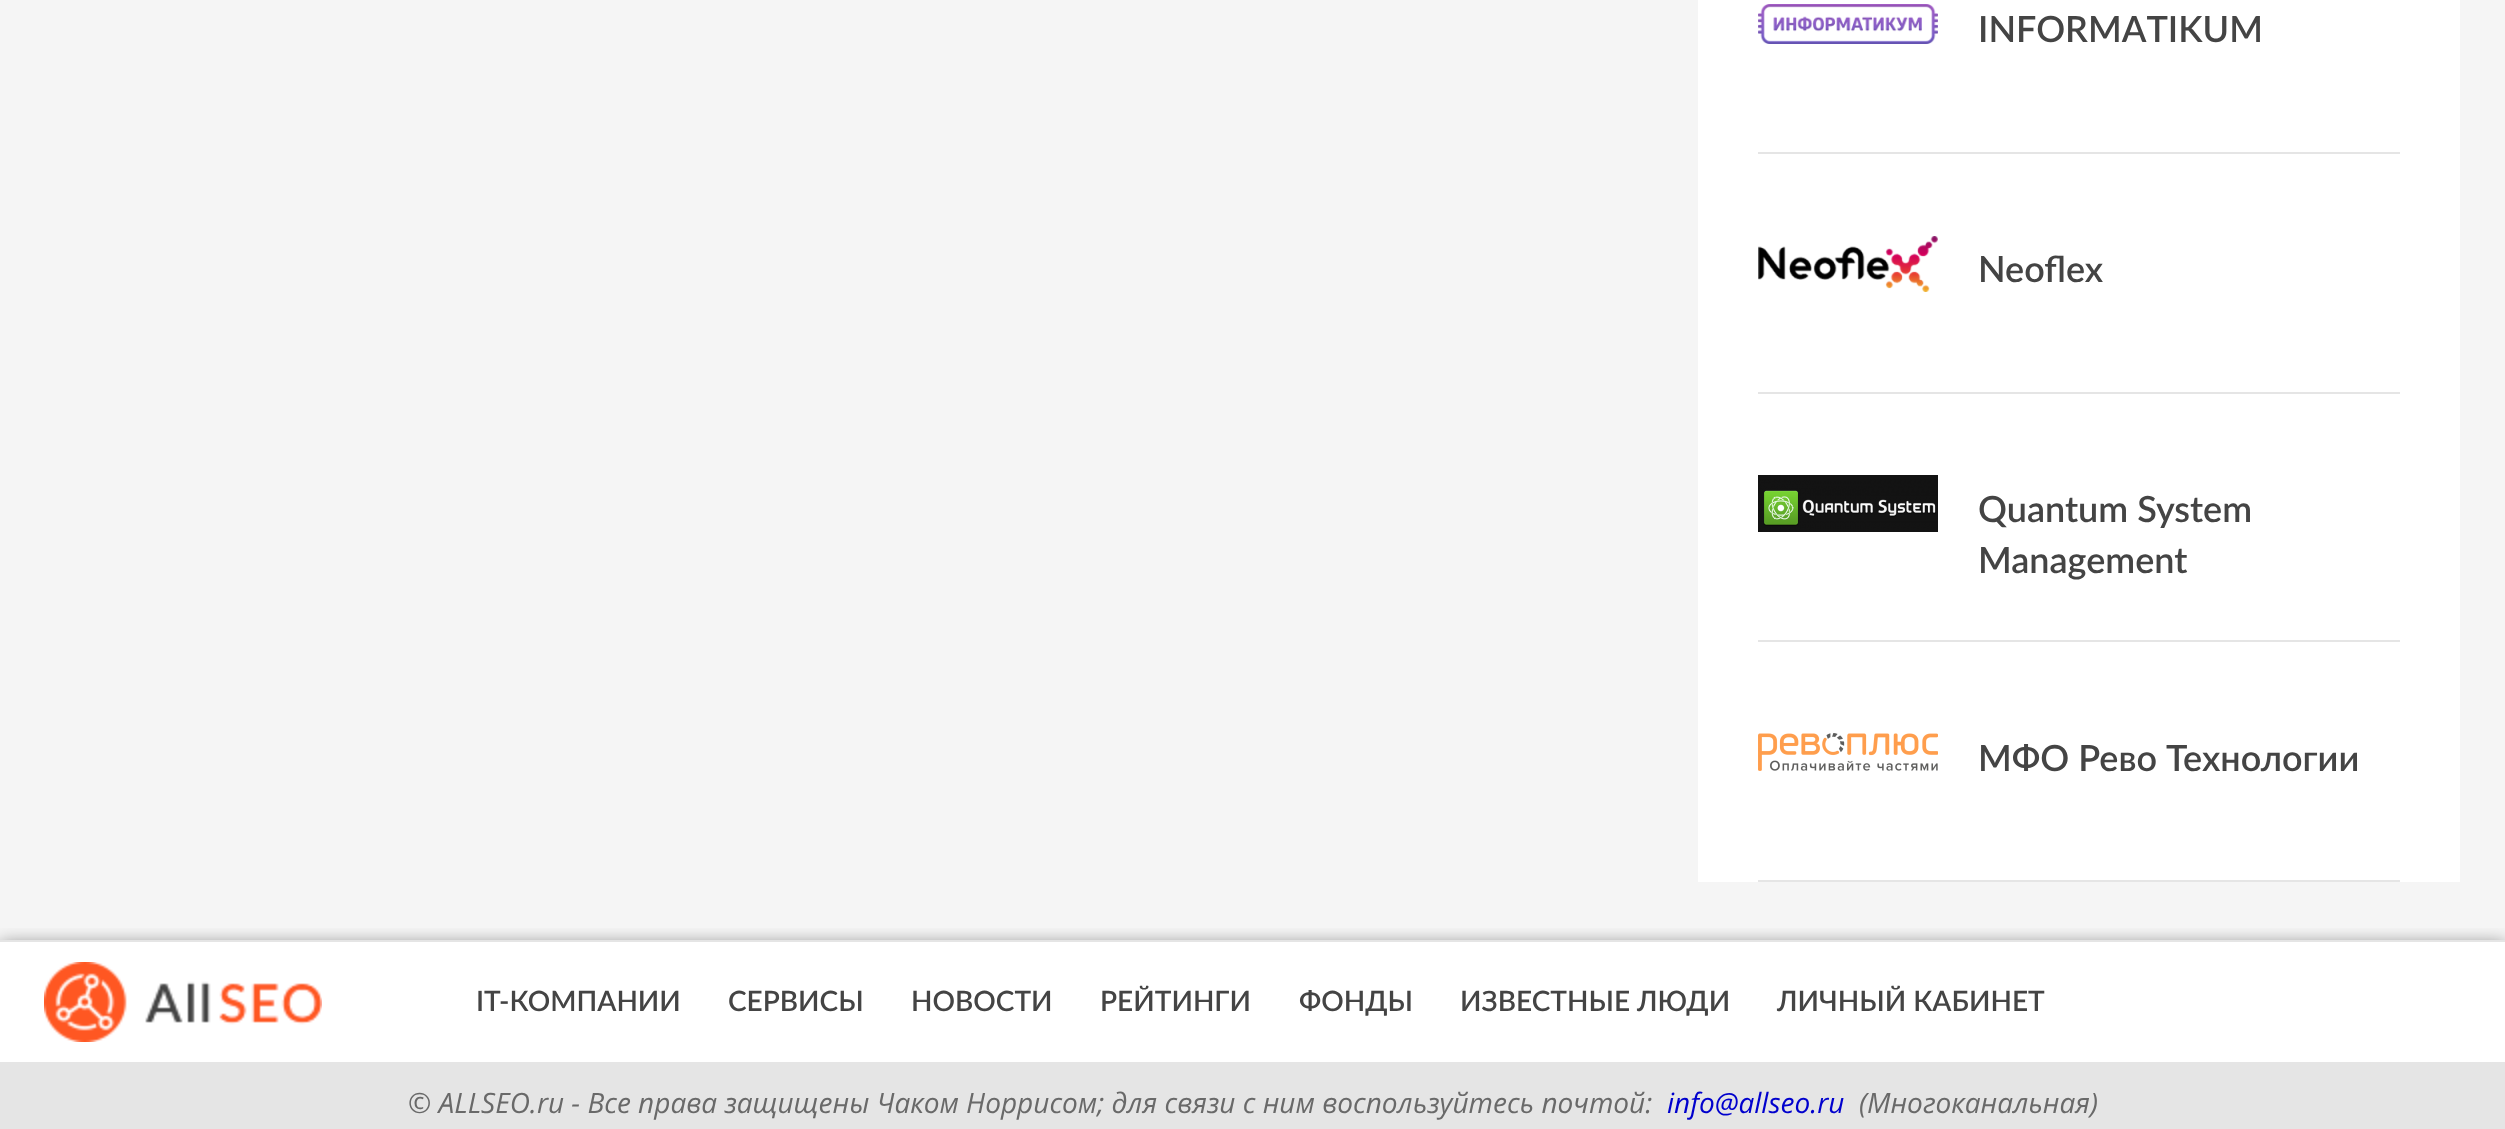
<!DOCTYPE html>
<meta charset="utf-8">
<style>body { margin: 0 } canvas { display: block }</style>
<canvas id="canvas" width="2505" height="1129"></canvas>
<img id="img1" src="images/1.png" hidden>
<img id="img2" src="images/2.png" hidden>
<img id="img3" src="images/3.png" hidden>
<img id="img4" src="images/4.png" hidden>
<img id="img5" src="images/5.png" hidden>
<script>
window.onload = function () {
    const canvas = document.getElementById('canvas');
    const context = canvas.getContext('2d');
    context.miterLimit = 4;
    context.fontKerning = 'normal';

    context.fillStyle = 'rgb(245, 245, 245)';
    context.fillRect(0, 0, 2505, 1129);
    context.fillStyle = 'rgb(255, 255, 255)';
    context.fillRect(1698, 0, 762, 882);
    context.fillStyle = 'rgb(229, 229, 229)';
    context.fillRect(1758, 152, 642, 2);
    context.drawImage(document.getElementById('img1'), 1758, 4, 180, 40);
    context.fillRect(1758, 392, 642, 2);
    context.drawImage(document.getElementById('img2'), 1758, 236, 180, 56);
    context.fillRect(1758, 640, 642, 2);
    context.drawImage(document.getElementById('img3'), 1758, 475, 180, 57);
    context.fillRect(1758, 880, 642, 2);
    context.drawImage(document.getElementById('img4'), 1758, 733, 180, 38);
    context.fillStyle = 'rgb(255, 255, 255)';
    context.fillRect(0, 942, 2505, 120);
    context.save();
    context.beginPath();
    context.rect(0, 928, 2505, 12);
    context.clip();
    context.fillStyle = 'rgba(0, 0, 0, 0.5)';
    context.filter = 'blur(9px)';
    context.beginPath();
    context.rect(0, 944, 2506, 122);
    context.fill();
    context.filter = 'none';
    context.restore();
    context.fillStyle = 'rgb(229, 229, 229)';
    context.fillRect(0, 940, 2505, 2);
    context.drawImage(document.getElementById('img5'), 44, 962, 278, 80);
    context.fillRect(0, 1062, 2505, 67);
    context.font = '600 36px Lato';
    context.fillStyle = 'rgb(68, 68, 68)';
    context.fillText('INFORMATIKUM', 1978, 42);
    context.fillText('Neoflex', 1978, 282);
    context.fillText('Quantum System', 1978, 522);
    context.fillText('Management', 1978, 573);
    context.fillText('МФО Рево Технологии', 1978, 771);
    context.font = '600 28px Lato';
    context.fillText('IT-КОМПАНИИ', 476, 1011);
    context.fillText('СЕРВИСЫ', 728, 1011);
    context.fillText('НОВОСТИ', 911, 1011);
    context.fillText('РЕЙТИНГИ', 1100, 1011);
    context.fillText('ФОНДЫ', 1299, 1011);
    context.fillText('ИЗВЕСТНЫЕ ЛЮДИ', 1460, 1011);
    context.fillText('ЛИЧНЫЙ КАБИНЕТ', 1777, 1011);
    context.font = 'italic 28px Open Sans';
    context.fillStyle = 'rgb(105, 105, 105)';
    context.fillText('© ALLSEO.ru - Все права защищены Чаком Норрисом; для связи с ним воспользуйтесь почтой:', 408, 1113);
    context.fillStyle = 'rgb(0, 0, 205)';
    context.fillText('info@allseo.ru', 1667, 1113);
    context.fillStyle = 'rgb(105, 105, 105)';
    context.fillText('(Многоканальная)', 1859, 1113);
};
</script>
